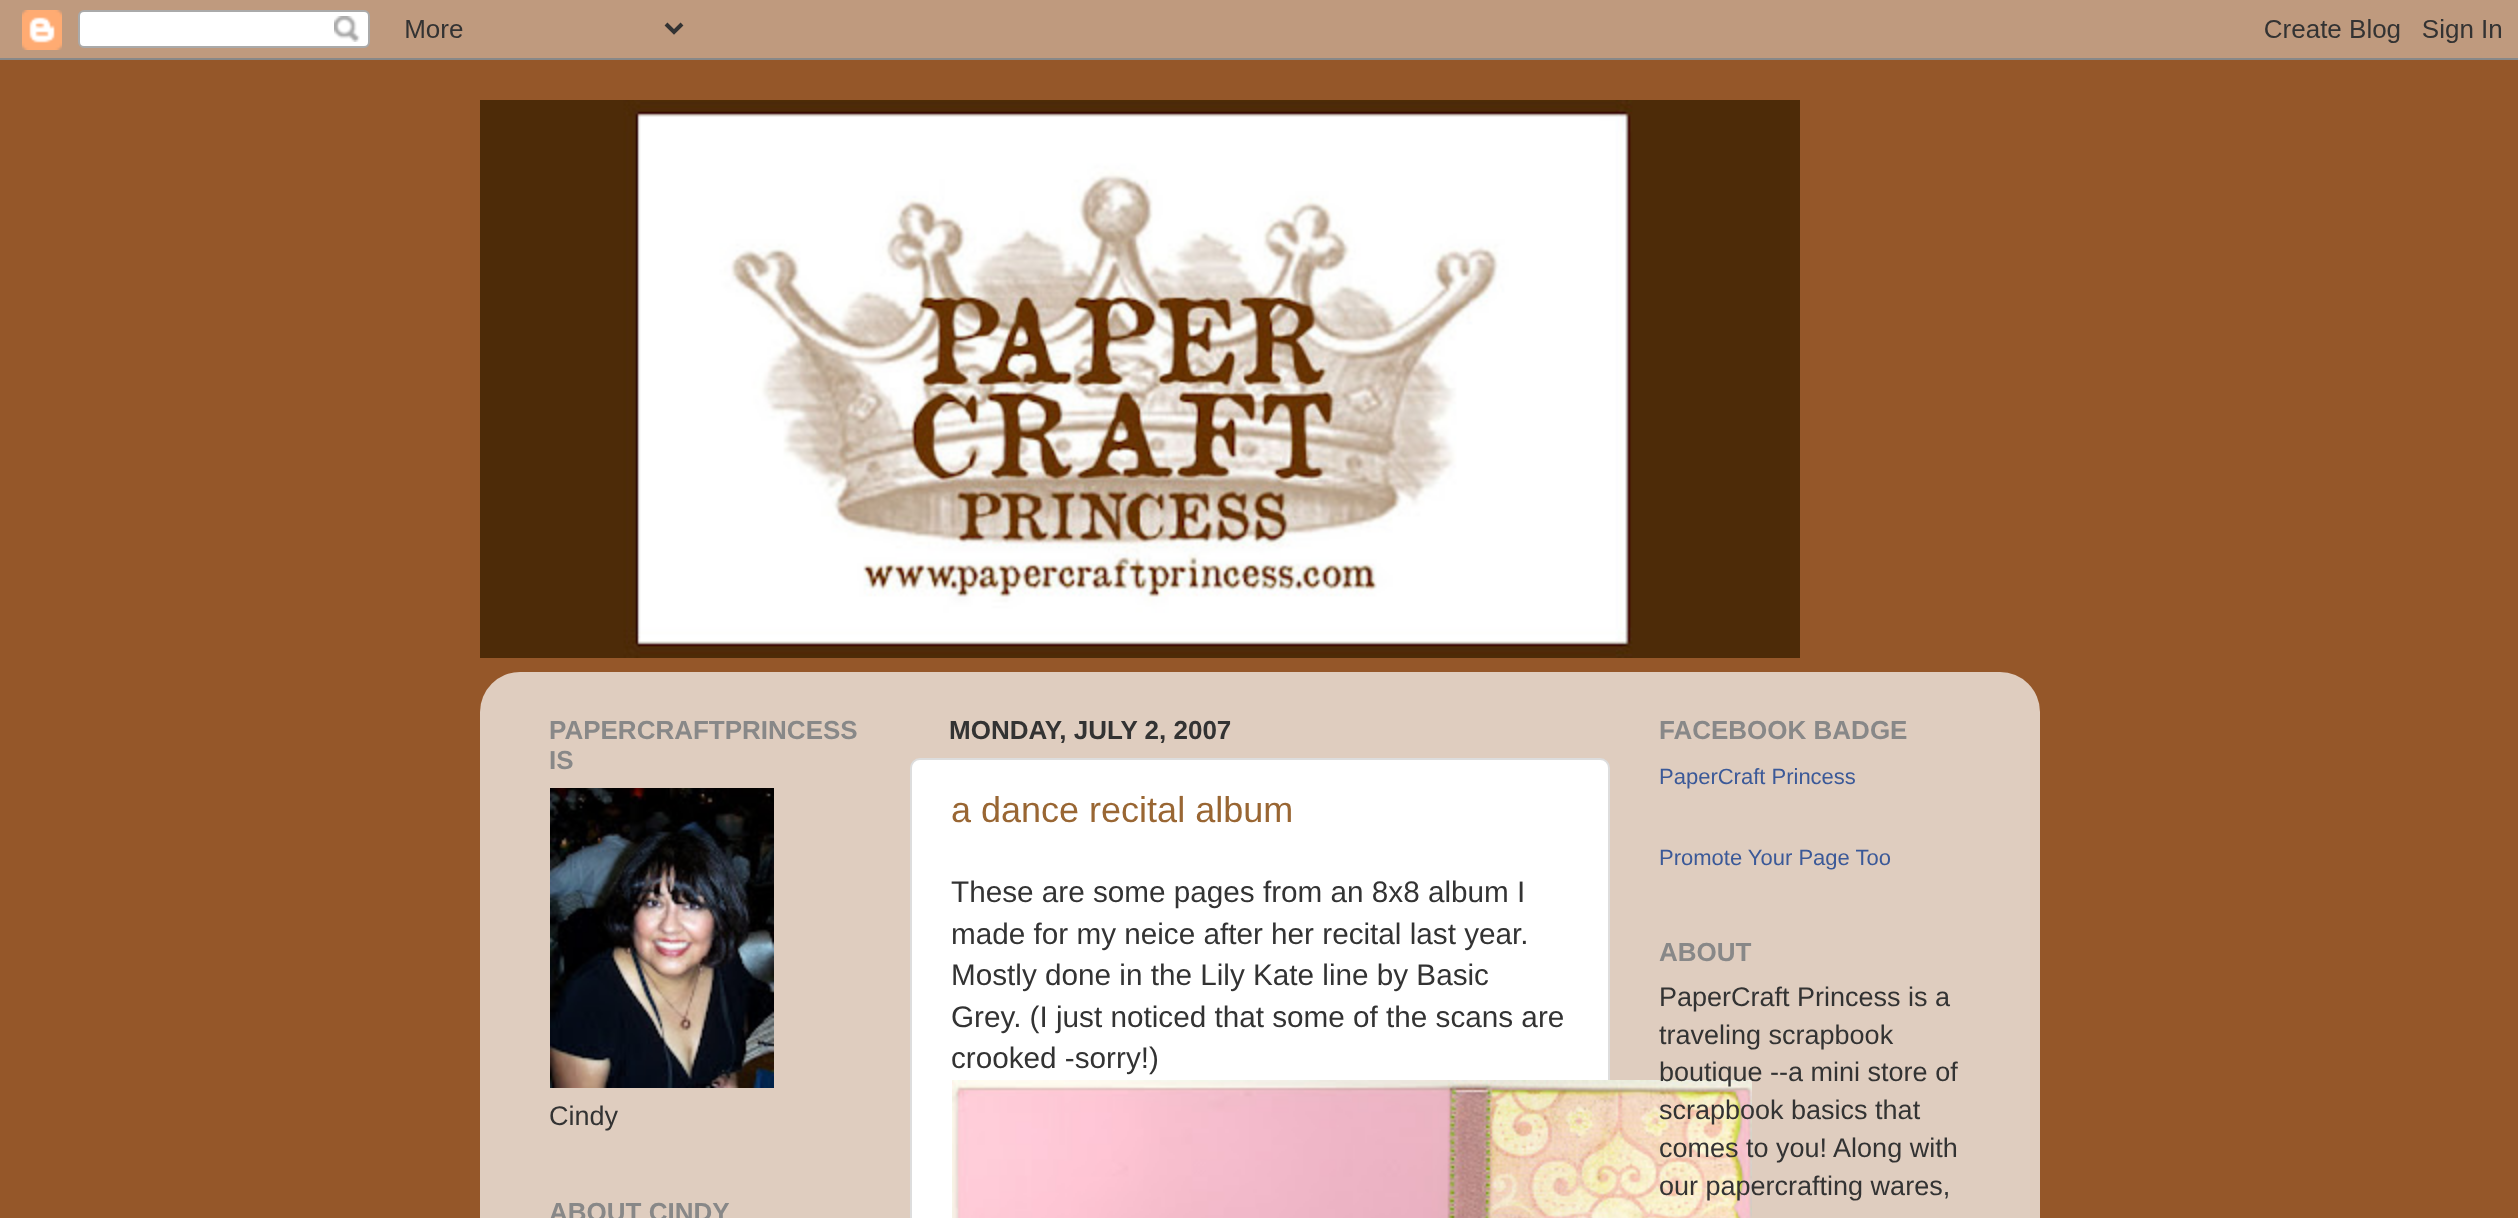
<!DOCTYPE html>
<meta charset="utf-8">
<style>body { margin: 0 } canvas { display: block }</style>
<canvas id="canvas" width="2518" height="1218"></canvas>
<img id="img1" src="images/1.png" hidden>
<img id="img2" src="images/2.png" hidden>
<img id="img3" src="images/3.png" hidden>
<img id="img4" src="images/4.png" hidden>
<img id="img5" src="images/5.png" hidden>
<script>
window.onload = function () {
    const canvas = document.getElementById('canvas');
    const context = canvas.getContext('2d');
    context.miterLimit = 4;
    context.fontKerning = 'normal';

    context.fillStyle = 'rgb(149, 87, 41)';
    context.fillRect(0, 0, 2518, 1218);
    context.drawImage(document.getElementById('img1'), 0, 0, 2518, 60);
    context.drawImage(document.getElementById('img2'), 480, 100, 1320, 558);
    context.drawImage(document.getElementById('img3'), 480, 672, 1560, 546);
    context.drawImage(document.getElementById('img4'), 550, 788, 224, 300);
    context.fillStyle = 'rgb(255, 255, 255)';
    context.beginPath();
    context.roundRect(911, 759, 698, 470, 9);
    context.fill();
    context.strokeStyle = 'rgb(221, 221, 221)';
    context.lineWidth = 2;
    context.stroke();
    context.drawImage(document.getElementById('img5'), 952, 1080, 800, 138);
    context.font = 'bold 26px Liberation Sans';
    context.fillStyle = 'rgb(136, 136, 136)';
    context.fillText('PAPERCRAFTPRINCESS', 549, 739);
    context.fillText('IS', 549, 769);
    context.font = '27px Liberation Sans';
    context.fillStyle = 'rgb(51, 51, 51)';
    context.fillText('Cindy', 549, 1125);
    context.font = 'bold 26px Liberation Sans';
    context.fillStyle = 'rgb(136, 136, 136)';
    context.fillText('ABOUT CINDY', 549, 1221);
    context.fillStyle = 'rgb(51, 51, 51)';
    context.fillText('MONDAY, JULY 2, 2007', 949, 739);
    context.font = '36px Liberation Sans';
    context.fillStyle = 'rgb(153, 102, 51)';
    context.fillText('a dance recital album', 951, 822);
    context.font = '29.7px Liberation Sans';
    context.fillStyle = 'rgb(51, 51, 51)';
    context.fillText('These are some pages from an 8x8 album I', 951, 902);
    context.fillText('made for my neice after her recital last year.', 951, 944);
    context.fillText('Mostly done in the Lily Kate line by Basic', 951, 985);
    context.fillText('Grey. (I just noticed that some of the scans are', 951, 1027);
    context.fillText('crooked -sorry!)', 951, 1068);
    context.font = 'bold 26px Liberation Sans';
    context.fillStyle = 'rgb(136, 136, 136)';
    context.fillText('FACEBOOK BADGE', 1659, 739);
    context.font = '22px Liberation Sans';
    context.fillStyle = 'rgb(59, 89, 152)';
    context.fillText('PaperCraft Princess', 1659, 784);
    context.fillText('Promote Your Page Too', 1659, 865);
    context.font = 'bold 26px Liberation Sans';
    context.fillStyle = 'rgb(136, 136, 136)';
    context.fillText('ABOUT', 1659, 961);
    context.font = '27px Liberation Sans';
    context.fillStyle = 'rgb(51, 51, 51)';
    context.fillText('PaperCraft Princess is a', 1659, 1006);
    context.fillText('traveling scrapbook', 1659, 1044);
    context.fillText('boutique --a mini store of', 1659, 1081);
    context.fillText('scrapbook basics that', 1659, 1119);
    context.fillText('comes to you! Along with', 1659, 1157);
    context.fillText('our papercrafting wares,', 1659, 1195);
};
</script>
